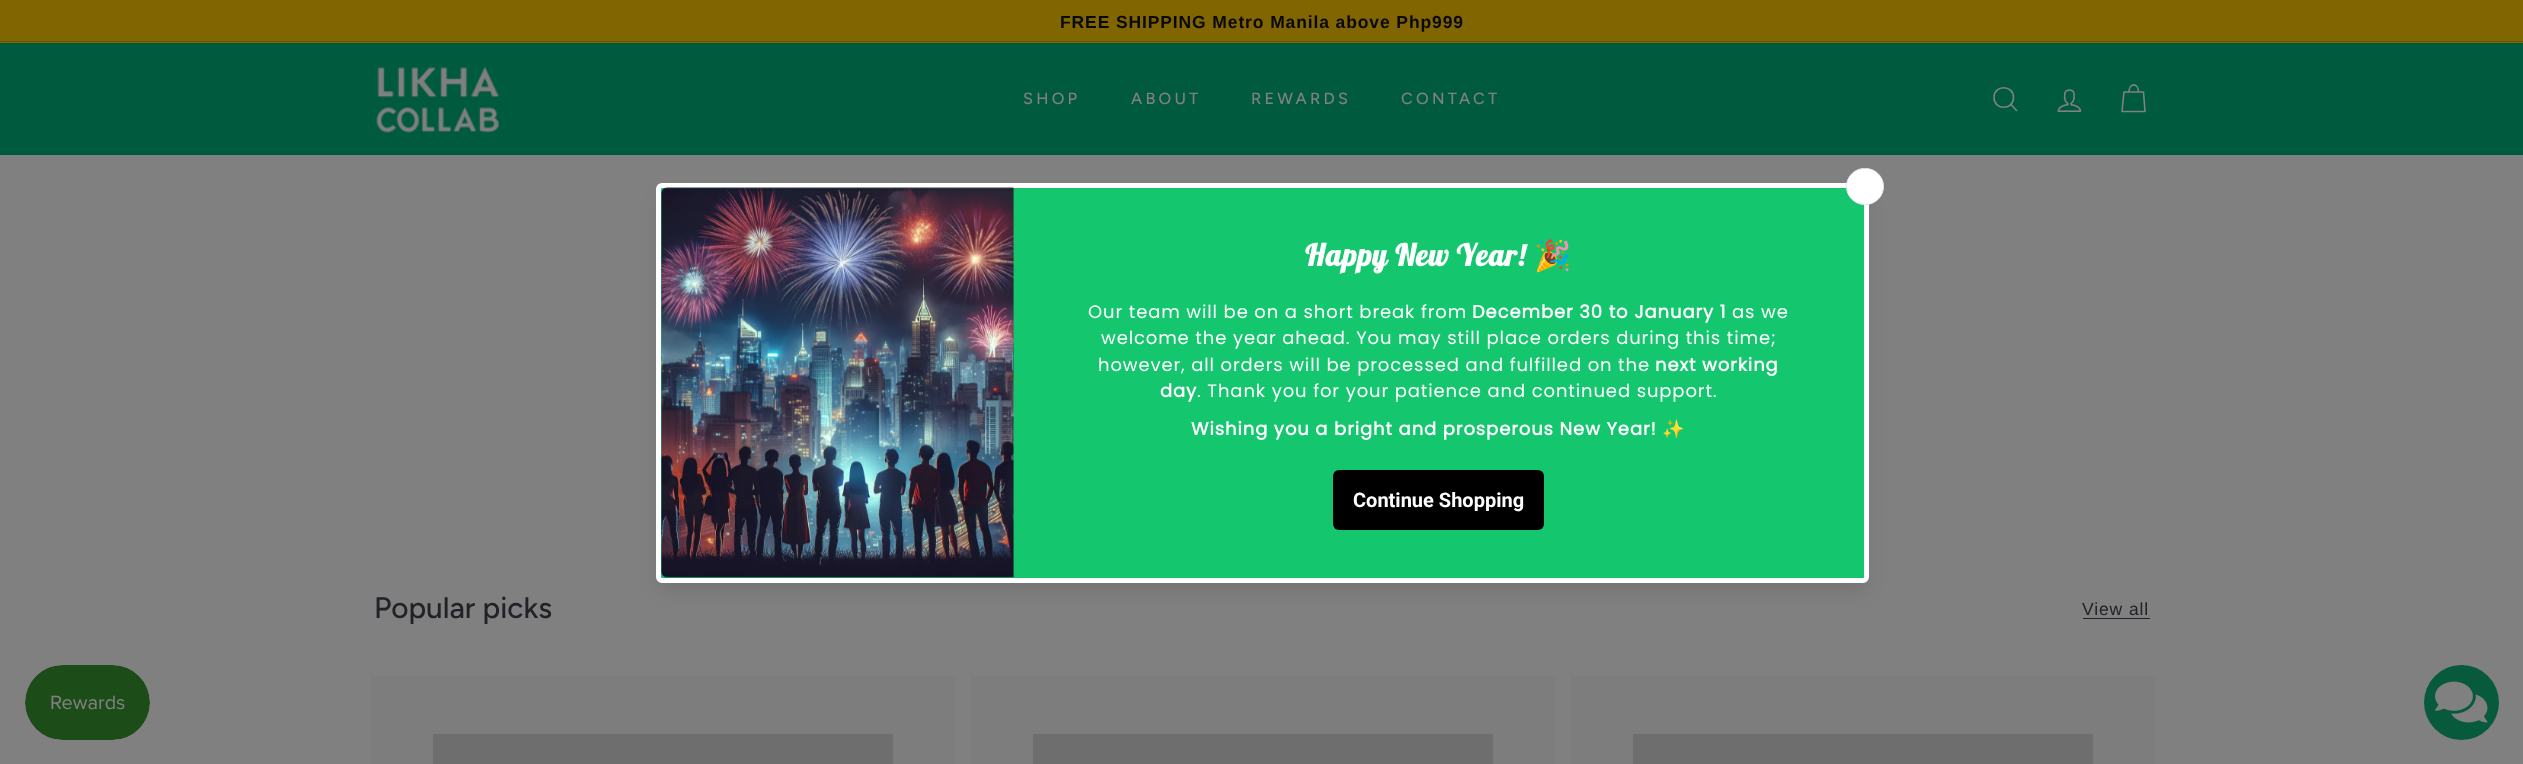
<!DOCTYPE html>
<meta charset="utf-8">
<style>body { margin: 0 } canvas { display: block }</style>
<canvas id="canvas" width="2523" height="764"></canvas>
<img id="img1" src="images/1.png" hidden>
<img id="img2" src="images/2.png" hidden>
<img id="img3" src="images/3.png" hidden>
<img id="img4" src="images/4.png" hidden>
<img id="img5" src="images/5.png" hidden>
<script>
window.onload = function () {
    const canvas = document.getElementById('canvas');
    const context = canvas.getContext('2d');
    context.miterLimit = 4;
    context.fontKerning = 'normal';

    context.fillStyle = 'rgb(128, 128, 128)';
    context.fillRect(0, 0, 2523, 764);
    context.fillStyle = 'rgb(128, 101, 0)';
    context.fillRect(0, 0, 2523, 43);
    context.fillStyle = 'rgb(110, 87, 2)';
    context.fillRect(0, 41, 2523, 1);
    context.fillStyle = 'rgb(0, 90, 61)';
    context.fillRect(0, 43, 2523, 112);
    context.drawImage(document.getElementById('img1'), 376, 67, 123, 66);
    context.beginPath();
    context.moveTo(2013.5, 97.5);
    context.bezierCurveTo(2013.5, 110.5, 1994, 110.5, 1994, 97.5);
    context.bezierCurveTo(1994, 84.5, 2013.5, 84.5, 2013.5, 97.5);
    context.moveTo(2017, 111);
    context.lineTo(2011, 104.5);
    context.strokeStyle = 'rgb(128, 128, 128)';
    context.lineWidth = 1.6;
    context.lineJoin = 'round';
    context.stroke();
    context.drawImage(document.getElementById('img2'), 2057, 89, 25, 23);
    context.beginPath();
    context.moveTo(2129, 92);
    context.bezierCurveTo(2129, 82.5, 2138.5, 82.5, 2138.5, 92);
    context.moveTo(2124, 92);
    context.lineTo(2143.5, 92);
    context.lineTo(2145, 111.5);
    context.lineTo(2122, 111.5);
    context.closePath();
    context.stroke();
    context.fillStyle = 'rgb(33, 34, 39)';
    context.fillRect(2083, 618, 67, 1);
    context.fillStyle = 'rgb(113, 113, 113)';
    context.fillRect(433, 734, 460, 30);
    context.fillStyle = 'rgba(33, 34, 39, 0.03)';
    context.fillRect(370, 676, 585, 88);
    context.fillStyle = 'rgb(113, 113, 113)';
    context.fillRect(1033, 734, 460, 30);
    context.fillStyle = 'rgba(33, 34, 39, 0.03)';
    context.fillRect(970, 676, 585, 88);
    context.fillStyle = 'rgb(113, 113, 113)';
    context.fillRect(1633, 734, 460, 30);
    context.fillStyle = 'rgba(33, 34, 39, 0.03)';
    context.fillRect(1570, 676, 585, 88);
    context.fillStyle = 'rgba(0, 0, 0, 0.1)';
    context.filter = 'blur(9.5px)';
    context.beginPath();
    context.roundRect(660, 199, 1205, 392, 2.5);
    context.fill();
    context.filter = 'none';
    context.fillStyle = 'rgb(20, 198, 109)';
    context.beginPath();
    context.roundRect(658.5, 185.5, 1208, 395, 3.5);
    context.fill();
    context.strokeStyle = 'rgb(255, 255, 255)';
    context.lineWidth = 5;
    context.lineJoin = 'miter';
    context.stroke();
    context.drawImage(document.getElementById('img3'), 661, 187, 353, 391);
    context.save();
    context.beginPath();
    context.rect(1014, 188, 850, 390);
    context.clip();
    context.fillStyle = 'rgba(0, 0, 0, 0.12)';
    context.filter = 'blur(12.5px)';
    context.beginPath();
    context.roundRect(1018, 191, 842, 383, 2.5);
    context.fill();
    context.filter = 'none';
    context.restore();
    context.beginPath();
    context.roundRect(1014, 188, 850, 390, 6);
    context.fill();
    context.fillStyle = 'rgb(255, 255, 255)';
    context.beginPath();
    context.roundRect(1846.5, 168.5, 37, 36, 18);
    context.fill();
    context.strokeStyle = 'rgb(226, 232, 240)';
    context.lineWidth = 1;
    context.stroke();
    context.fillStyle = 'rgb(0, 0, 0)';
    context.beginPath();
    context.roundRect(1333, 470, 211, 60, 6);
    context.fill();
    context.drawImage(document.getElementById('img4'), 25, 665, 125, 75);
    context.fillStyle = 'rgb(8, 90, 61)';
    context.beginPath();
    context.arc(2461.5, 702.5, 37.5, 0, 2 * Math.PI);
    context.fill();
    context.drawImage(document.getElementById('img5'), 2435, 681, 53, 42);
    context.letterSpacing = '0.88px';
    context.font = 'bold 17.5px Liberation Sans';
    context.fillStyle = 'rgb(9, 9, 9)';
    context.fillText('FREE SHIPPING Metro Manila above Php999', 1060, 28);
    context.letterSpacing = '3.25px';
    context.font = '500 16.25px Figtree';
    context.fillStyle = 'rgb(128, 128, 128)';
    context.fillText('SHOP', 1023, 104);
    context.fillText('ABOUT', 1131, 104);
    context.fillText('REWARDS', 1251, 104);
    context.fillText('CONTACT', 1401, 104);
    context.letterSpacing = '0px';
    context.font = '500 29.75px Figtree';
    context.fillStyle = 'rgb(33, 34, 39)';
    context.fillText('Popular picks', 374, 618);
    context.letterSpacing = '0.88px';
    context.font = '17.5px Liberation Sans';
    context.fillText('View all', 2082, 615);
    context.font = 'bold 30px Galada';
    context.fillStyle = 'rgb(255, 255, 255)';
    context.fillText('Happy New Year!', 1305, 266);
    context.font = 'bold 30px Noto Color Emoji';
    context.fillText('🎉', 1534, 266);
    context.font = '18px Poppins';
    context.fillText('Our team will be on a short break from', 1088, 318);
    context.font = 'bold 18px Poppins';
    context.fillText('December 30 to January 1', 1472, 318);
    context.font = '18px Poppins';
    context.fillText('as we', 1732, 318);
    context.fillText('welcome the year ahead. You may still place orders during this time;', 1101, 344);
    context.fillText('however, all orders will be processed and fulfilled on the', 1098, 371);
    context.font = 'bold 18px Poppins';
    context.fillText('next working', 1655, 371);
    context.fillText('day', 1160, 397);
    context.font = '18px Poppins';
    context.fillText('. Thank you for your patience and continued support.', 1197, 397);
    context.font = 'bold 18px Poppins';
    context.fillText('Wishing you a bright and prosperous New Year!', 1191, 435);
    context.font = '18px Noto Color Emoji';
    context.fillText('✨', 1662, 435);
    context.letterSpacing = '0px';
    context.font = 'bold 20px Roboto';
    context.fillText('Continue Shopping', 1353, 507);
};
</script>
